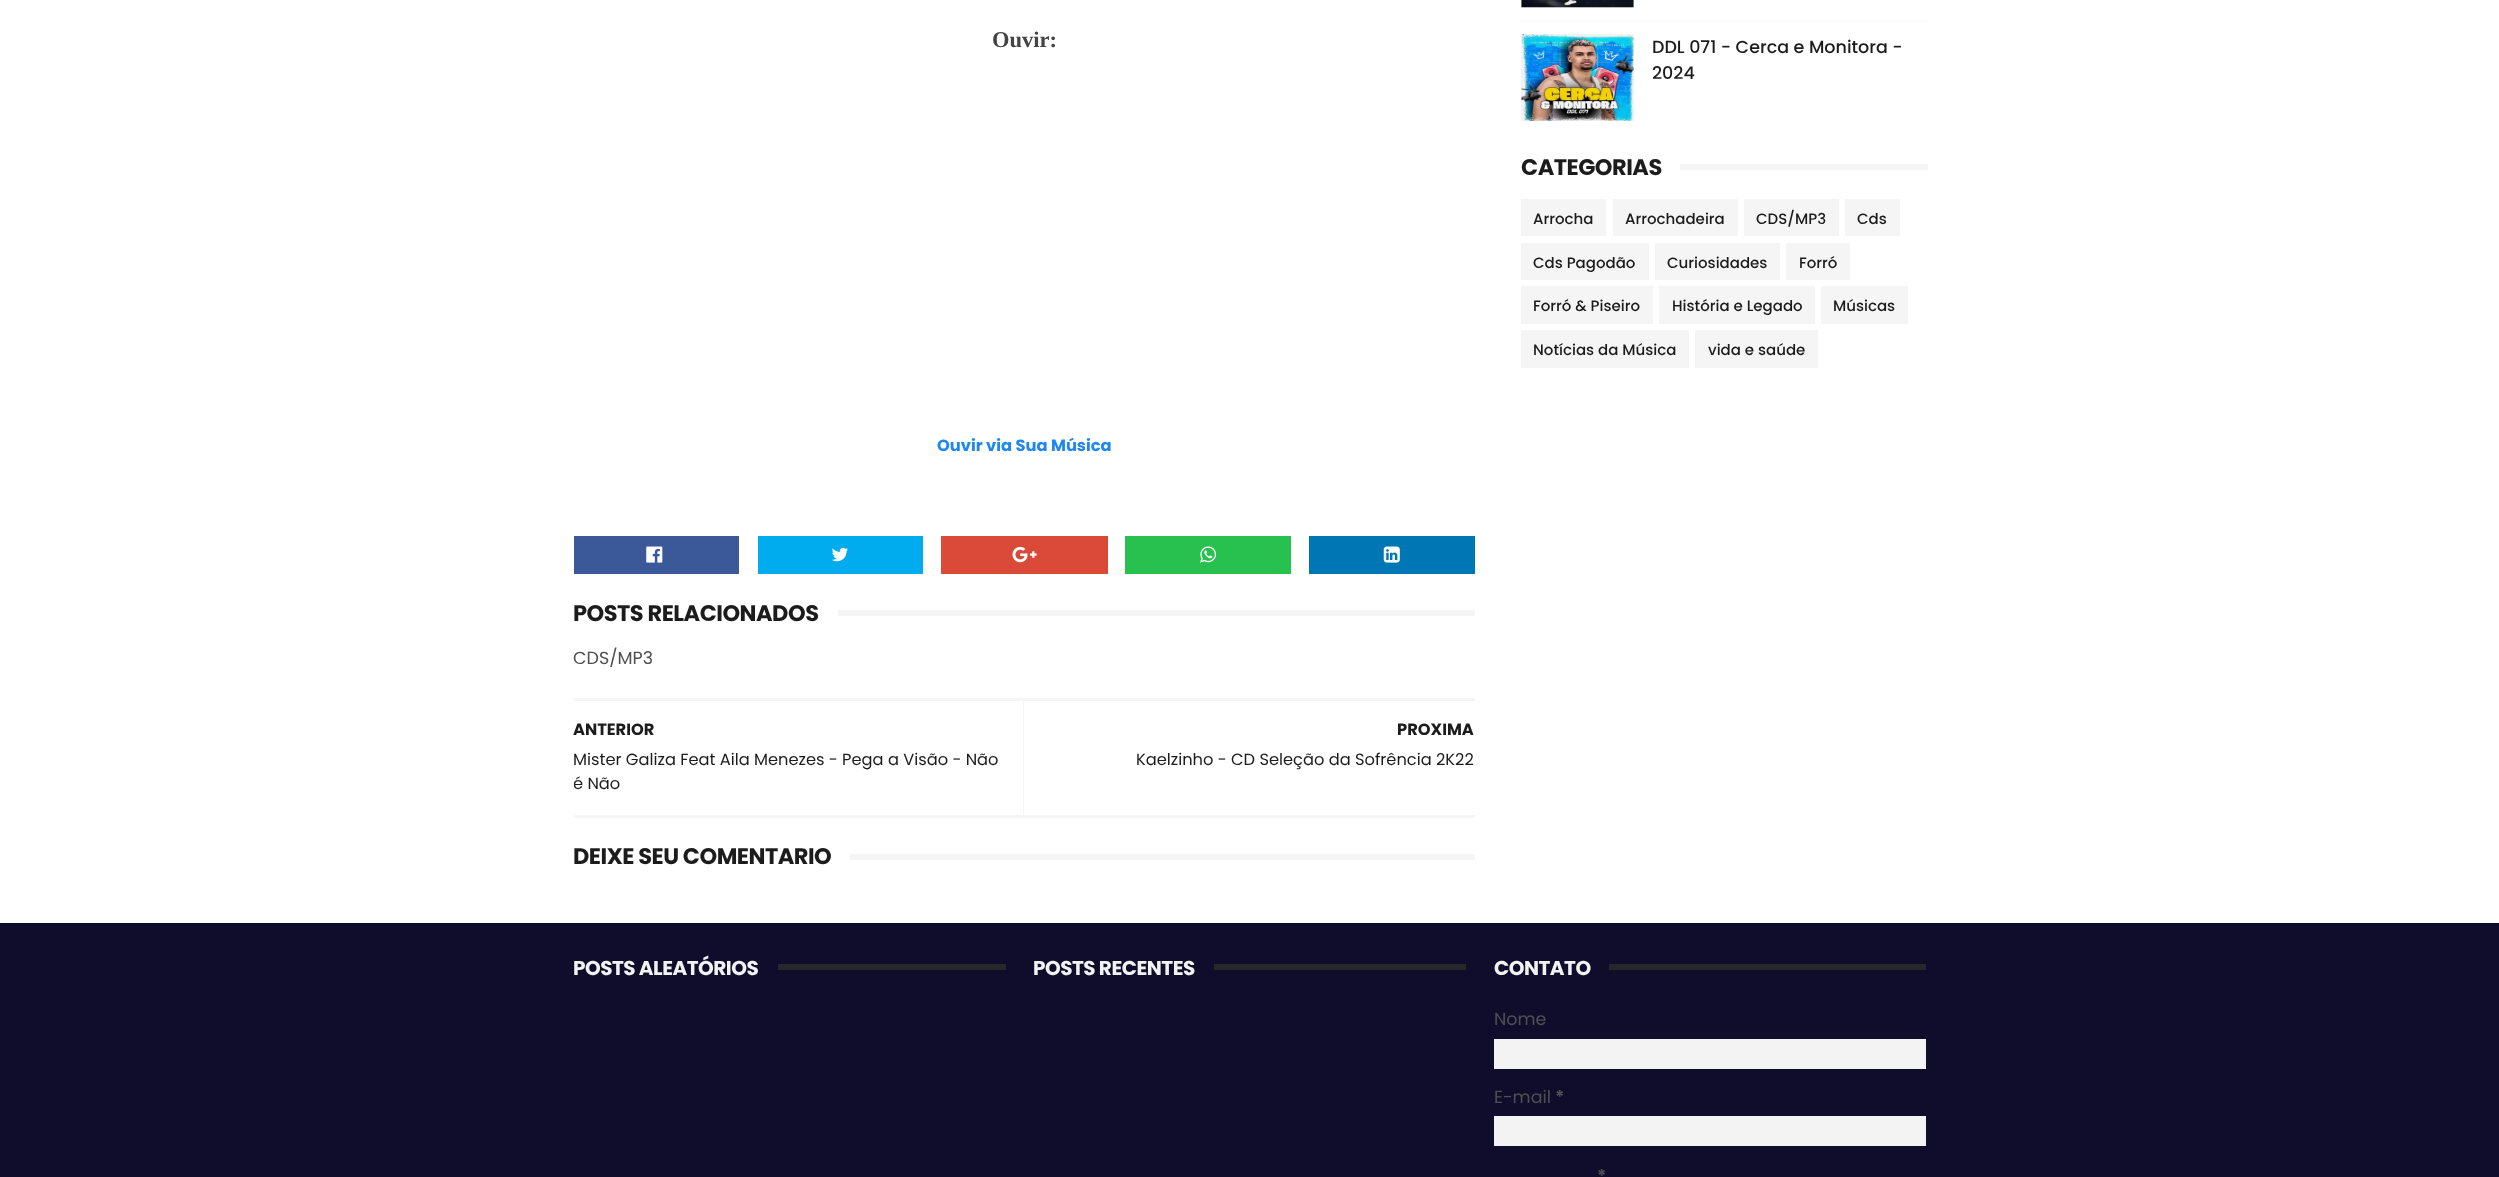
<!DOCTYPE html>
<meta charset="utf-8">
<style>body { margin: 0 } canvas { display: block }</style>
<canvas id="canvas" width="2499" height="1177"></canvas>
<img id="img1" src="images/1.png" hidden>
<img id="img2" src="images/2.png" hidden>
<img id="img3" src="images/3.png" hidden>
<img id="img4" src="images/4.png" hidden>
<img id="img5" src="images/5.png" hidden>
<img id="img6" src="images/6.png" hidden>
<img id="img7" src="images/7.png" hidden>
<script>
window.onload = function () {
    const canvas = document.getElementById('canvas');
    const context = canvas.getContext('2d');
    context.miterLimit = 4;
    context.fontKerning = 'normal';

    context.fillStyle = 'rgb(255, 255, 255)';
    context.fillRect(0, 0, 2499, 1177);
    context.fillStyle = 'rgb(244, 244, 244)';
    context.fillRect(1521, 34, 113, 87);
    context.fillRect(1521, 0, 113, 8);
    context.fillStyle = 'rgb(59, 89, 152)';
    context.fillRect(574, 536, 165, 38);
    context.drawImage(document.getElementById('img1'), 646, 546, 17, 17);
    context.fillStyle = 'rgb(0, 172, 238)';
    context.fillRect(758, 536, 165, 38);
    context.drawImage(document.getElementById('img2'), 831, 547, 17, 15);
    context.fillStyle = 'rgb(219, 74, 57)';
    context.fillRect(941, 536, 167, 38);
    context.drawImage(document.getElementById('img3'), 1012, 546, 25, 17);
    context.fillStyle = 'rgb(40, 192, 78)';
    context.fillRect(1125, 536, 166, 38);
    context.drawImage(document.getElementById('img4'), 1200, 546, 17, 17);
    context.fillStyle = 'rgb(0, 119, 181)';
    context.fillRect(1309, 536, 166, 38);
    context.drawImage(document.getElementById('img5'), 1383, 546, 17, 17);
    context.fillStyle = 'rgb(245, 245, 245)';
    context.fillRect(838, 610, 637, 6);
    context.fillRect(574, 698, 901, 3);
    context.fillRect(574, 815, 901, 3);
    context.fillRect(1023, 700, 1, 115);
    context.fillRect(850, 854, 625, 6);
    context.drawImage(document.getElementById('img6'), 1521, 0, 113, 8);
    context.beginPath();
    context.moveTo(1521, 20.5);
    context.lineTo(1927.5, 20.5);
    context.strokeStyle = 'rgb(245, 245, 245)';
    context.lineWidth = 1.2;
    context.setLineDash([1.25, 1.25]);
    context.stroke();
    context.drawImage(document.getElementById('img7'), 1521, 33, 113, 89);
    context.fillRect(1680, 164, 248, 6);
    context.fillRect(1521, 199, 85, 37);
    context.fillRect(1613, 199, 125, 37);
    context.fillRect(1744, 199, 95, 37);
    context.fillRect(1845, 199, 55, 37);
    context.fillRect(1521, 243, 128, 37);
    context.fillRect(1655, 243, 125, 37);
    context.fillRect(1786, 243, 64, 37);
    context.fillRect(1521, 286, 132, 38);
    context.fillRect(1659, 286, 156, 38);
    context.fillRect(1821, 286, 87, 38);
    context.fillRect(1521, 330, 168, 38);
    context.fillRect(1695, 330, 123, 38);
    context.fillStyle = 'rgb(15, 13, 43)';
    context.fillRect(0, 923, 2499, 254);
    context.fillStyle = 'rgb(39, 39, 39)';
    context.fillRect(778, 964, 228, 6);
    context.fillRect(1214, 964, 252, 6);
    context.fillRect(1609, 964, 317, 6);
    context.fillStyle = 'rgb(243, 243, 243)';
    context.fillRect(1494, 1039, 432, 30);
    context.fillRect(1494, 1116, 432, 30);
    context.font = 'bold 22.5px Liberation Serif';
    context.fillStyle = 'rgb(68, 68, 68)';
    context.fillText('Ouvir:', 992, 47);
    context.font = 'bold 16.25px Poppins';
    context.fillStyle = 'rgb(30, 135, 240)';
    context.fillText('Ouvir via Sua Música', 937, 451);
    context.letterSpacing = '-0.5px';
    context.font = 'bold 22.5px Poppins';
    context.fillStyle = 'rgb(28, 28, 28)';
    context.fillText('POSTS RELACIONADOS', 573, 621);
    context.letterSpacing = '0px';
    context.font = '17.5px Poppins';
    context.fillStyle = 'rgb(79, 79, 79)';
    context.fillText('CDS/MP3', 573, 664);
    context.font = 'bold 16.25px Poppins';
    context.fillStyle = 'rgb(28, 28, 28)';
    context.fillText('ANTERIOR', 573, 735);
    context.font = '16.25px Poppins';
    context.fillText('Mister Galiza Feat Aila Menezes - Pega a Visão - Não', 573, 765);
    context.save();
    context.beginPath();
    context.rect(574, 700, 901, 115);
    context.clip();
    context.fillText('é Não', 573, 789);
    context.restore();
    context.font = 'bold 16.25px Poppins';
    context.fillText('PROXIMA', 1397, 735);
    context.font = '16.25px Poppins';
    context.fillText('Kaelzinho - CD Seleção da Sofrência 2K22', 1136, 765);
    context.letterSpacing = '-0.5px';
    context.font = 'bold 22.5px Poppins';
    context.fillText('DEIXE SEU COMENTARIO', 573, 864);
    context.letterSpacing = '0px';
    context.font = '500 17.5px Poppins';
    context.fillText('DDL 071 - Cerca e Monitora -', 1652, 53);
    context.fillText('2024', 1652, 79);
    context.letterSpacing = '-0.5px';
    context.font = 'bold 22.5px Poppins';
    context.fillText('CATEGORIAS', 1521, 175);
    context.letterSpacing = '0px';
    context.font = '500 15px Poppins';
    context.fillText('Arrocha', 1533, 224);
    context.fillText('Arrochadeira', 1625, 224);
    context.fillText('CDS/MP3', 1756, 224);
    context.fillText('Cds', 1857, 224);
    context.fillText('Cds Pagodão', 1533, 268);
    context.fillText('Curiosidades', 1667, 268);
    context.fillText('Forró', 1799, 268);
    context.fillText('Forró & Piseiro', 1533, 311);
    context.fillText('História e Legado', 1672, 311);
    context.fillText('Músicas', 1833, 311);
    context.fillText('Notícias da Música', 1533, 355);
    context.fillText('vida e saúde', 1708, 355);
    context.letterSpacing = '-0.5px';
    context.font = 'bold 20px Poppins';
    context.fillStyle = 'rgb(242, 242, 242)';
    context.fillText('POSTS ALEATÓRIOS', 573, 975);
    context.fillText('POSTS RECENTES', 1033, 975);
    context.fillText('CONTATO', 1494, 975);
    context.letterSpacing = '0px';
    context.font = '17.5px Poppins';
    context.fillStyle = 'rgb(79, 79, 79)';
    context.fillText('Nome', 1494, 1025);
    context.fillText('E-mail', 1494, 1103);
    context.font = 'bold 17.5px Poppins';
    context.fillText('*', 1555, 1103);
    context.fillText('*', 1597, 1182);
};
</script>
